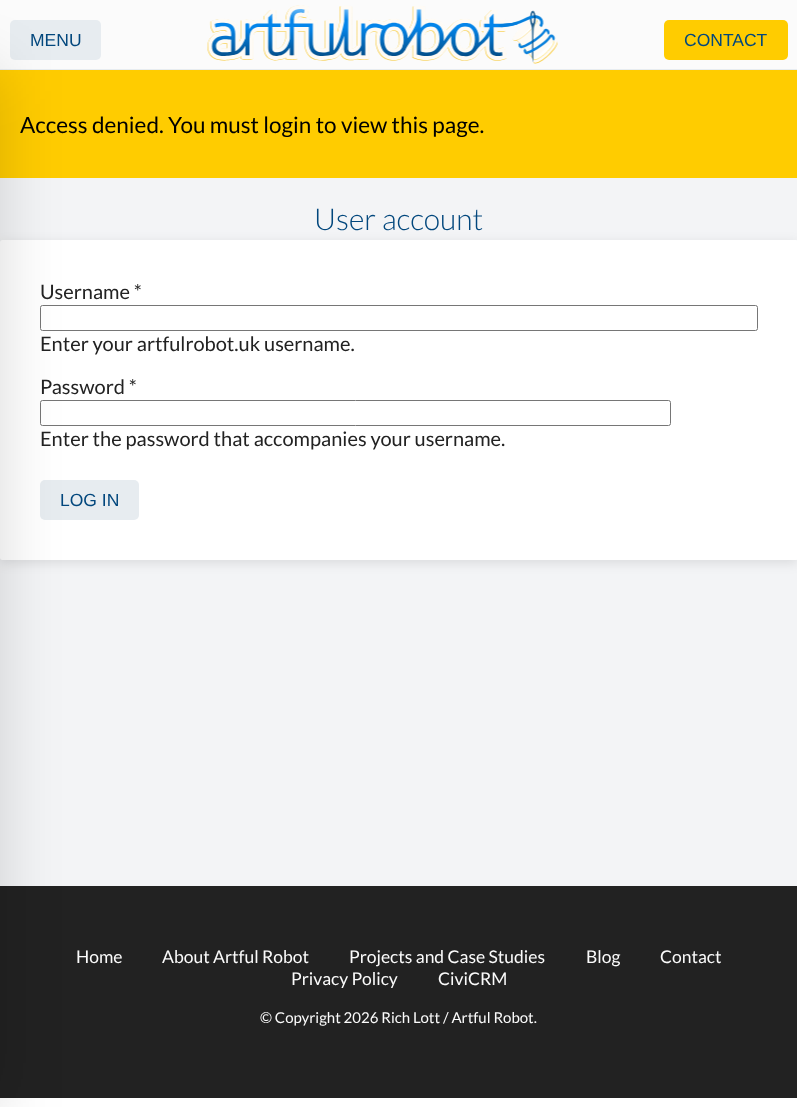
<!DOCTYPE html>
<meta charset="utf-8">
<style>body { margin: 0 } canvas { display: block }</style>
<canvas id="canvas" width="797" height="1107"></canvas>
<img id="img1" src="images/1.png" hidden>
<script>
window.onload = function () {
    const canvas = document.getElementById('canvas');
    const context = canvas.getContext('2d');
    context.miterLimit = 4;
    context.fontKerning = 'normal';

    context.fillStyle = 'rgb(255, 255, 255)';
    context.fillRect(0, 0, 797, 1107);
    context.fillStyle = 'rgb(251, 251, 251)';
    context.fillRect(0, 0, 797, 69);
    context.fillStyle = 'rgb(231, 236, 240)';
    context.fillRect(0, 69, 797, 1);
    context.beginPath();
    context.roundRect(10, 20, 91, 40, 5);
    context.fill();
    context.fillStyle = 'rgb(243, 244, 246)';
    context.fillRect(0, 178, 797, 708);
    context.fillStyle = 'rgb(255, 204, 0)';
    context.fillRect(0, 70, 797, 108);
    context.fillStyle = 'rgba(0, 0, 0, 0.1)';
    context.filter = 'blur(6px)';
    context.beginPath();
    context.roundRect(0, 243, 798, 320, 2.5);
    context.fill();
    context.filter = 'none';
    context.fillStyle = 'rgb(255, 255, 255)';
    context.beginPath();
    context.roundRect(0, 240, 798, 320, 2.5);
    context.fill();
    context.beginPath();
    context.roundRect(40.5, 305.5, 717, 25, 2);
    context.strokeStyle = 'rgb(118, 118, 118)';
    context.stroke();
    context.beginPath();
    context.roundRect(40.5, 400.5, 630, 25, 2);
    context.stroke();
    context.fillStyle = 'rgb(231, 236, 240)';
    context.beginPath();
    context.roundRect(40, 480, 99, 40, 5);
    context.fill();
    context.fillStyle = 'rgb(34, 34, 34)';
    context.fillRect(0, 886, 797, 212);
    context.fillStyle = 'rgba(0, 0, 0, 0.15)';
    context.filter = 'blur(31px)';
    context.beginPath();
    context.rect(-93, 70, 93, 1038);
    context.fill();
    context.filter = 'none';
    context.drawImage(document.getElementById('img1'), 207, 5, 351, 59);
    context.fillStyle = 'rgb(255, 204, 0)';
    context.beginPath();
    context.roundRect(664, 20, 124, 40, 5);
    context.fill();
    context.font = '17.5px Liberation Sans';
    context.fillStyle = 'rgb(2, 71, 125)';
    context.fillText('MENU', 30, 46);
    context.fillText('CONTACT', 684, 46);
    context.font = '22.5px Lato';
    context.fillStyle = 'rgb(0, 0, 0)';
    context.fillText('Access denied. You must login to view this page.', 20, 133);
    context.font = '300 30px Lato';
    context.fillStyle = 'rgb(2, 71, 125)';
    context.fillText('User account', 314, 230);
    context.font = '20px Lato';
    context.fillStyle = 'rgb(34, 34, 34)';
    context.fillText('Username *', 40, 299);
    context.fillText('Enter your artfulrobot.uk username.', 40, 351);
    context.fillText('Password *', 40, 394);
    context.fillText('Enter the password that accompanies your username.', 40, 446);
    context.font = '17.5px Liberation Sans';
    context.fillStyle = 'rgb(2, 71, 125)';
    context.fillText('LOG IN', 60, 506);
    context.font = '17.5px Lato';
    context.fillStyle = 'rgb(251, 251, 251)';
    context.fillText('Home', 76, 963);
    context.fillText('About Artful Robot', 162, 963);
    context.fillText('Projects and Case Studies', 349, 963);
    context.fillText('Blog', 586, 963);
    context.fillText('Contact', 660, 963);
    context.fillText('Privacy Policy', 291, 985);
    context.fillText('CiviCRM', 438, 985);
    context.font = '15px Lato';
    context.fillText('© Copyright 2026 Rich Lott / Artful Robot.', 260, 1023);
};
</script>
